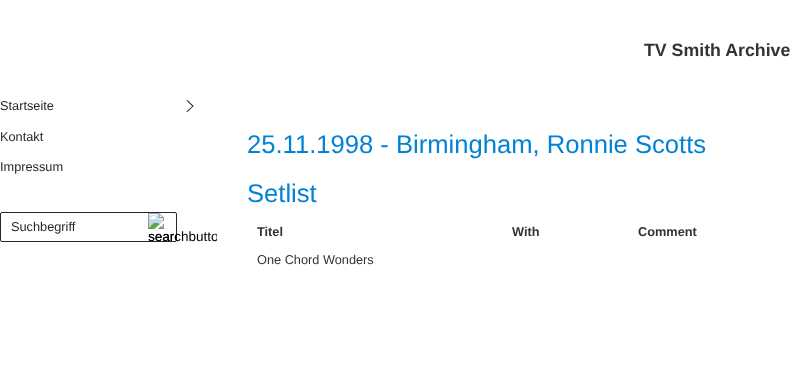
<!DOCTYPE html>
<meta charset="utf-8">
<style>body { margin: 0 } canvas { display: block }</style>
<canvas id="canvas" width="805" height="366"></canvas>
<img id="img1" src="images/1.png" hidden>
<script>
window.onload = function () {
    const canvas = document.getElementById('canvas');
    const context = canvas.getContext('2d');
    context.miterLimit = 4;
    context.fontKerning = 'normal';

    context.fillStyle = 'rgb(255, 255, 255)';
    context.fillRect(0, 0, 805, 366);
    context.fillStyle = 'rgb(39, 39, 39)';
    context.beginPath();
    context.moveTo(187.5, 100);
    context.lineTo(193.5, 106);
    context.lineTo(193, 107);
    context.lineTo(186.5, 100.5);
    context.closePath();
    context.fill();
    context.beginPath();
    context.moveTo(193, 105.5);
    context.lineTo(193.5, 106);
    context.lineTo(187.5, 112);
    context.lineTo(186.5, 111.5);
    context.closePath();
    context.fill();
    context.beginPath();
    context.roundRect(0.5, 212.5, 176, 29, 1.5);
    context.strokeStyle = 'rgb(39, 39, 39)';
    context.stroke();
    context.drawImage(document.getElementById('img1'), 148, 213, 28, 28);
    context.font = 'bold 17.75px Liberation Sans';
    context.fillStyle = 'rgb(51, 51, 51)';
    context.fillText('TV Smith Archive', 644, 56);
    context.font = '12.75px Liberation Sans';
    context.fillStyle = 'rgb(39, 39, 39)';
    context.fillText('Startseite', 0, 110);
    context.fillText('Kontakt', 0, 141);
    context.fillText('Impressum', 0, 171);
    context.fillText('Suchbegriff', 11, 231);
    context.save();
    context.beginPath();
    context.rect(0, 90, 217, 182);
    context.clip();
    context.font = '13.5px Liberation Sans';
    context.fillStyle = 'rgb(0, 0, 0)';
    context.fillText('searchbutto', 148, 241);
    context.restore();
    context.font = '25.6px Liberation Sans';
    context.fillStyle = 'rgb(0, 130, 215)';
    context.fillText('25.11.1998 - Birmingham, Ronnie Scotts', 247, 153);
    context.fillText('Setlist', 247, 202);
    context.font = 'bold 12.75px Liberation Sans';
    context.fillStyle = 'rgb(51, 51, 51)';
    context.fillText('Titel', 257, 236);
    context.fillText('With', 512, 236);
    context.fillText('Comment', 638, 236);
    context.font = '12.75px Liberation Sans';
    context.fillText('One Chord Wonders', 257, 264);
};
</script>
